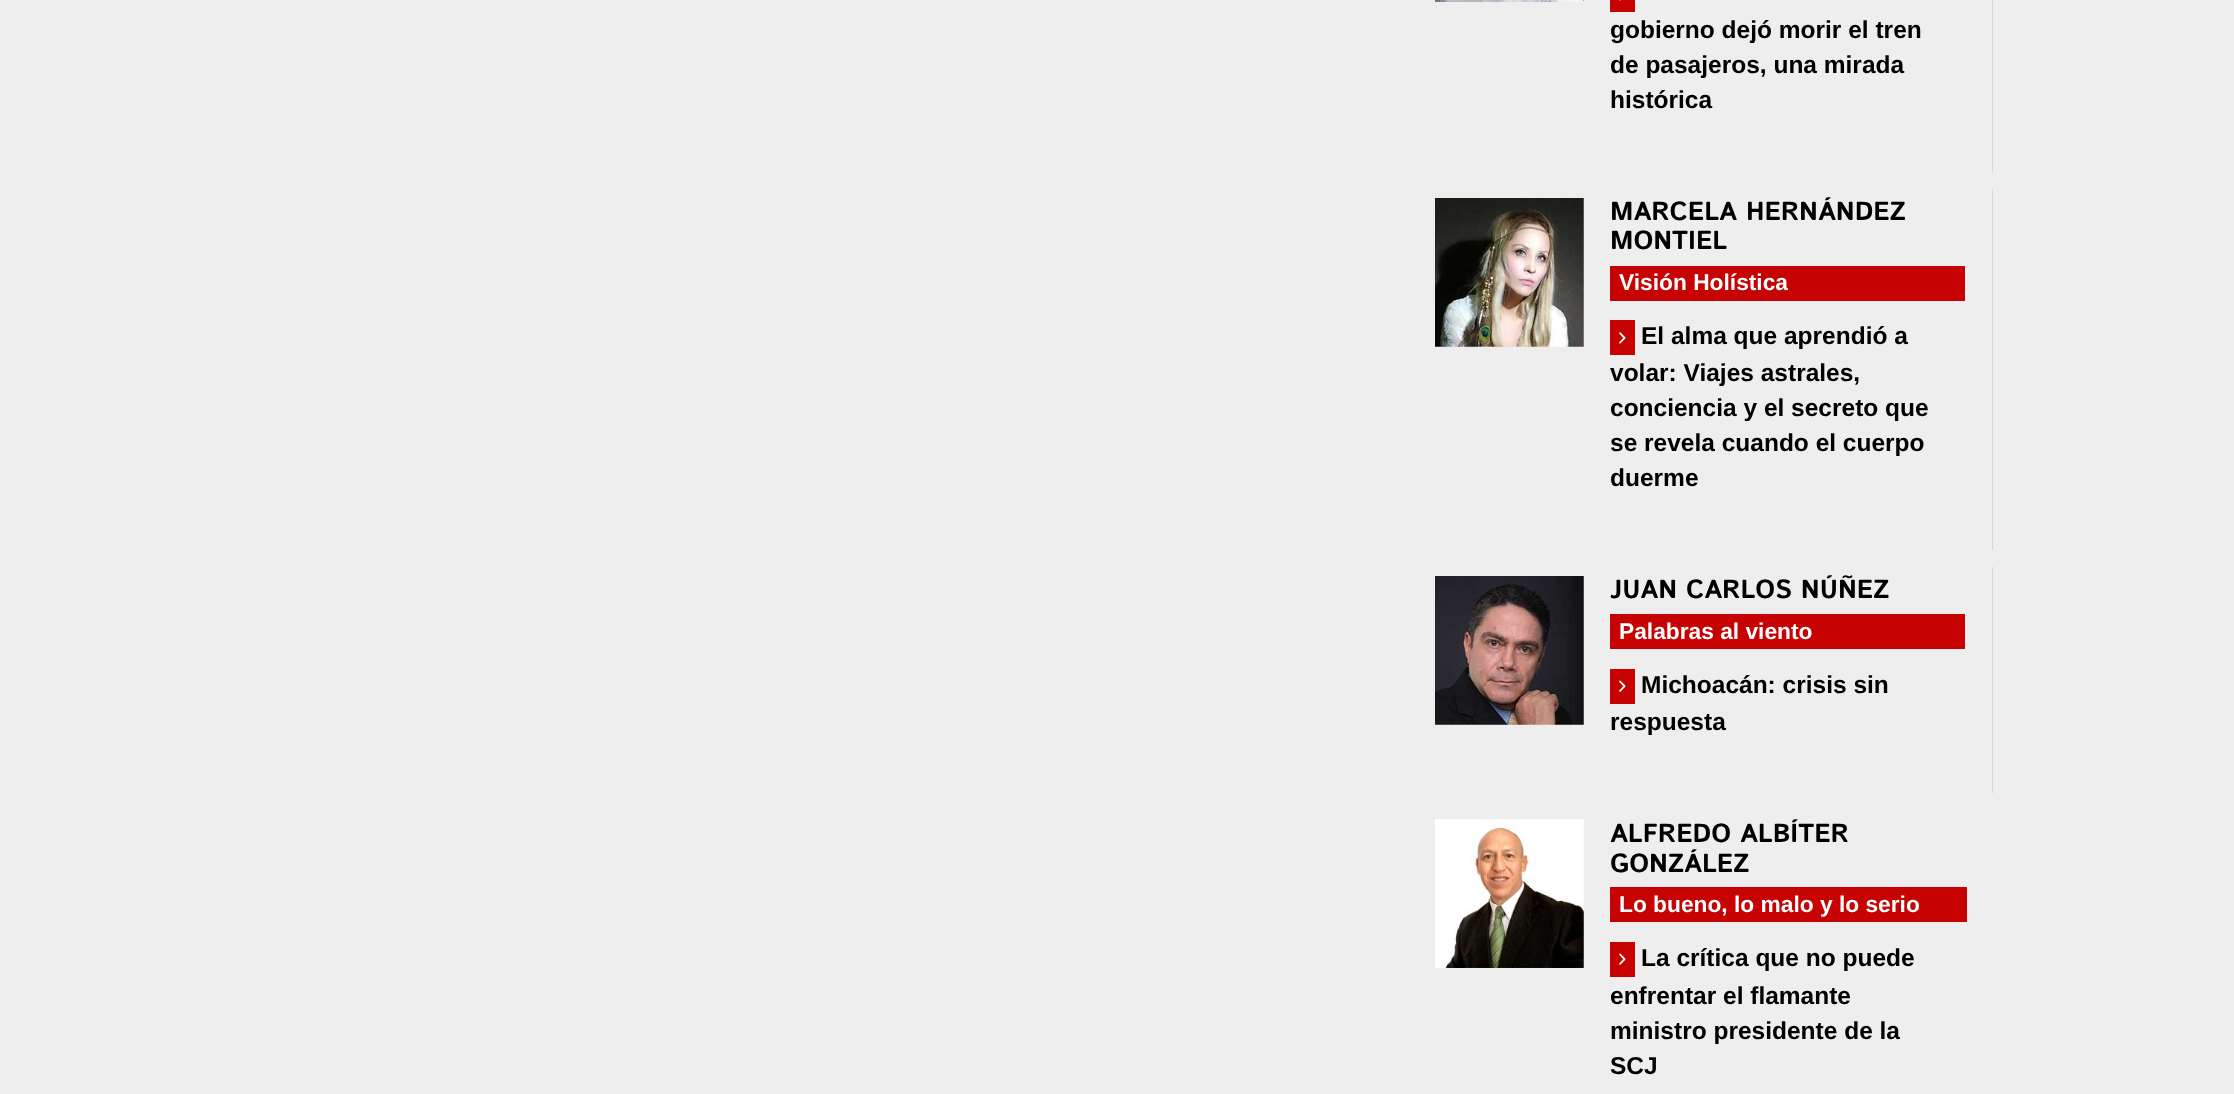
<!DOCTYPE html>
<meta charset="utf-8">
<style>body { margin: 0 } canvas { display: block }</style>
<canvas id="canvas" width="2234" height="1094"></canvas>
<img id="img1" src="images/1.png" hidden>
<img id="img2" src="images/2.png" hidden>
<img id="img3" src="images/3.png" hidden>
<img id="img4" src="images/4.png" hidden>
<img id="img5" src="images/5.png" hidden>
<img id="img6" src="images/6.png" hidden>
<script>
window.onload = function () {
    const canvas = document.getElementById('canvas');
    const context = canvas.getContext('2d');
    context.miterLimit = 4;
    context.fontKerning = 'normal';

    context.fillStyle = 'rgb(238, 238, 238)';
    context.fillRect(0, 0, 2234, 1094);
    context.fillStyle = 'rgb(215, 215, 215)';
    context.fillRect(1992, 0, 1, 172);
    context.drawImage(document.getElementById('img1'), 1435, 0, 149, 2);
    context.fillStyle = 'rgb(198, 2, 3)';
    context.fillRect(1610, 0, 25, 12);
    context.fillStyle = 'rgb(213, 70, 71)';
    context.fillRect(1619, 0, 2, 1);
    context.fillStyle = 'rgb(215, 215, 215)';
    context.fillRect(1992, 189, 1, 361);
    context.drawImage(document.getElementById('img2'), 1435, 198, 149, 149);
    context.fillStyle = 'rgb(198, 2, 3)';
    context.fillRect(1610, 266, 355, 35);
    context.fillRect(1610, 320, 25, 35);
    context.drawImage(document.getElementById('img3'), 1619, 332, 7, 12);
    context.fillStyle = 'rgb(215, 215, 215)';
    context.fillRect(1992, 567, 1, 226);
    context.drawImage(document.getElementById('img4'), 1435, 576, 149, 149);
    context.fillStyle = 'rgb(198, 2, 3)';
    context.fillRect(1610, 614, 355, 35);
    context.fillRect(1610, 669, 25, 35);
    context.drawImage(document.getElementById('img5'), 1619, 680, 7, 12);
    context.drawImage(document.getElementById('img6'), 1435, 819, 149, 149);
    context.fillRect(1610, 887, 357, 35);
    context.fillRect(1610, 942, 25, 35);
    context.drawImage(document.getElementById('img5'), 1619, 953, 7, 12);
    context.font = 'bold 24.5px Liberation Sans';
    context.fillStyle = 'rgb(0, 0, 0)';
    context.fillText('gobierno dejó morir el tren', 1610, 38);
    context.fillText('de pasajeros, una mirada', 1610, 73);
    context.fillText('histórica', 1610, 108);
    context.font = 'bold 26.25px Istok Web';
    context.fillText('MARCELA HERNÁNDEZ', 1610, 220);
    context.fillText('MONTIEL', 1610, 249);
    context.font = 'bold 22.75px Liberation Sans';
    context.fillStyle = 'rgb(255, 255, 255)';
    context.fillText('Visión Holística', 1619, 290);
    context.font = 'bold 24.5px Liberation Sans';
    context.fillStyle = 'rgb(0, 0, 0)';
    context.fillText('El alma que aprendió a', 1641, 344);
    context.fillText('volar: Viajes astrales,', 1610, 381);
    context.fillText('conciencia y el secreto que', 1610, 416);
    context.fillText('se revela cuando el cuerpo', 1610, 451);
    context.fillText('duerme', 1610, 486);
    context.font = 'bold 26.25px Istok Web';
    context.fillText('JUAN CARLOS NÚÑEZ', 1610, 598);
    context.font = 'bold 22.75px Liberation Sans';
    context.fillStyle = 'rgb(255, 255, 255)';
    context.fillText('Palabras al viento', 1619, 639);
    context.font = 'bold 24.5px Liberation Sans';
    context.fillStyle = 'rgb(0, 0, 0)';
    context.fillText('Michoacán: crisis sin', 1641, 693);
    context.fillText('respuesta', 1610, 730);
    context.font = 'bold 26.25px Istok Web';
    context.fillText('ALFREDO ALBÍTER', 1610, 842);
    context.fillText('GONZÁLEZ', 1610, 872);
    context.font = 'bold 22.75px Liberation Sans';
    context.fillStyle = 'rgb(255, 255, 255)';
    context.fillText('Lo bueno, lo malo y lo serio', 1619, 912);
    context.font = 'bold 24.5px Liberation Sans';
    context.fillStyle = 'rgb(0, 0, 0)';
    context.fillText('La crítica que no puede', 1641, 966);
    context.fillText('enfrentar el flamante', 1610, 1004);
    context.fillText('ministro presidente de la', 1610, 1039);
    context.fillText('SCJ', 1610, 1074);
};
</script>
